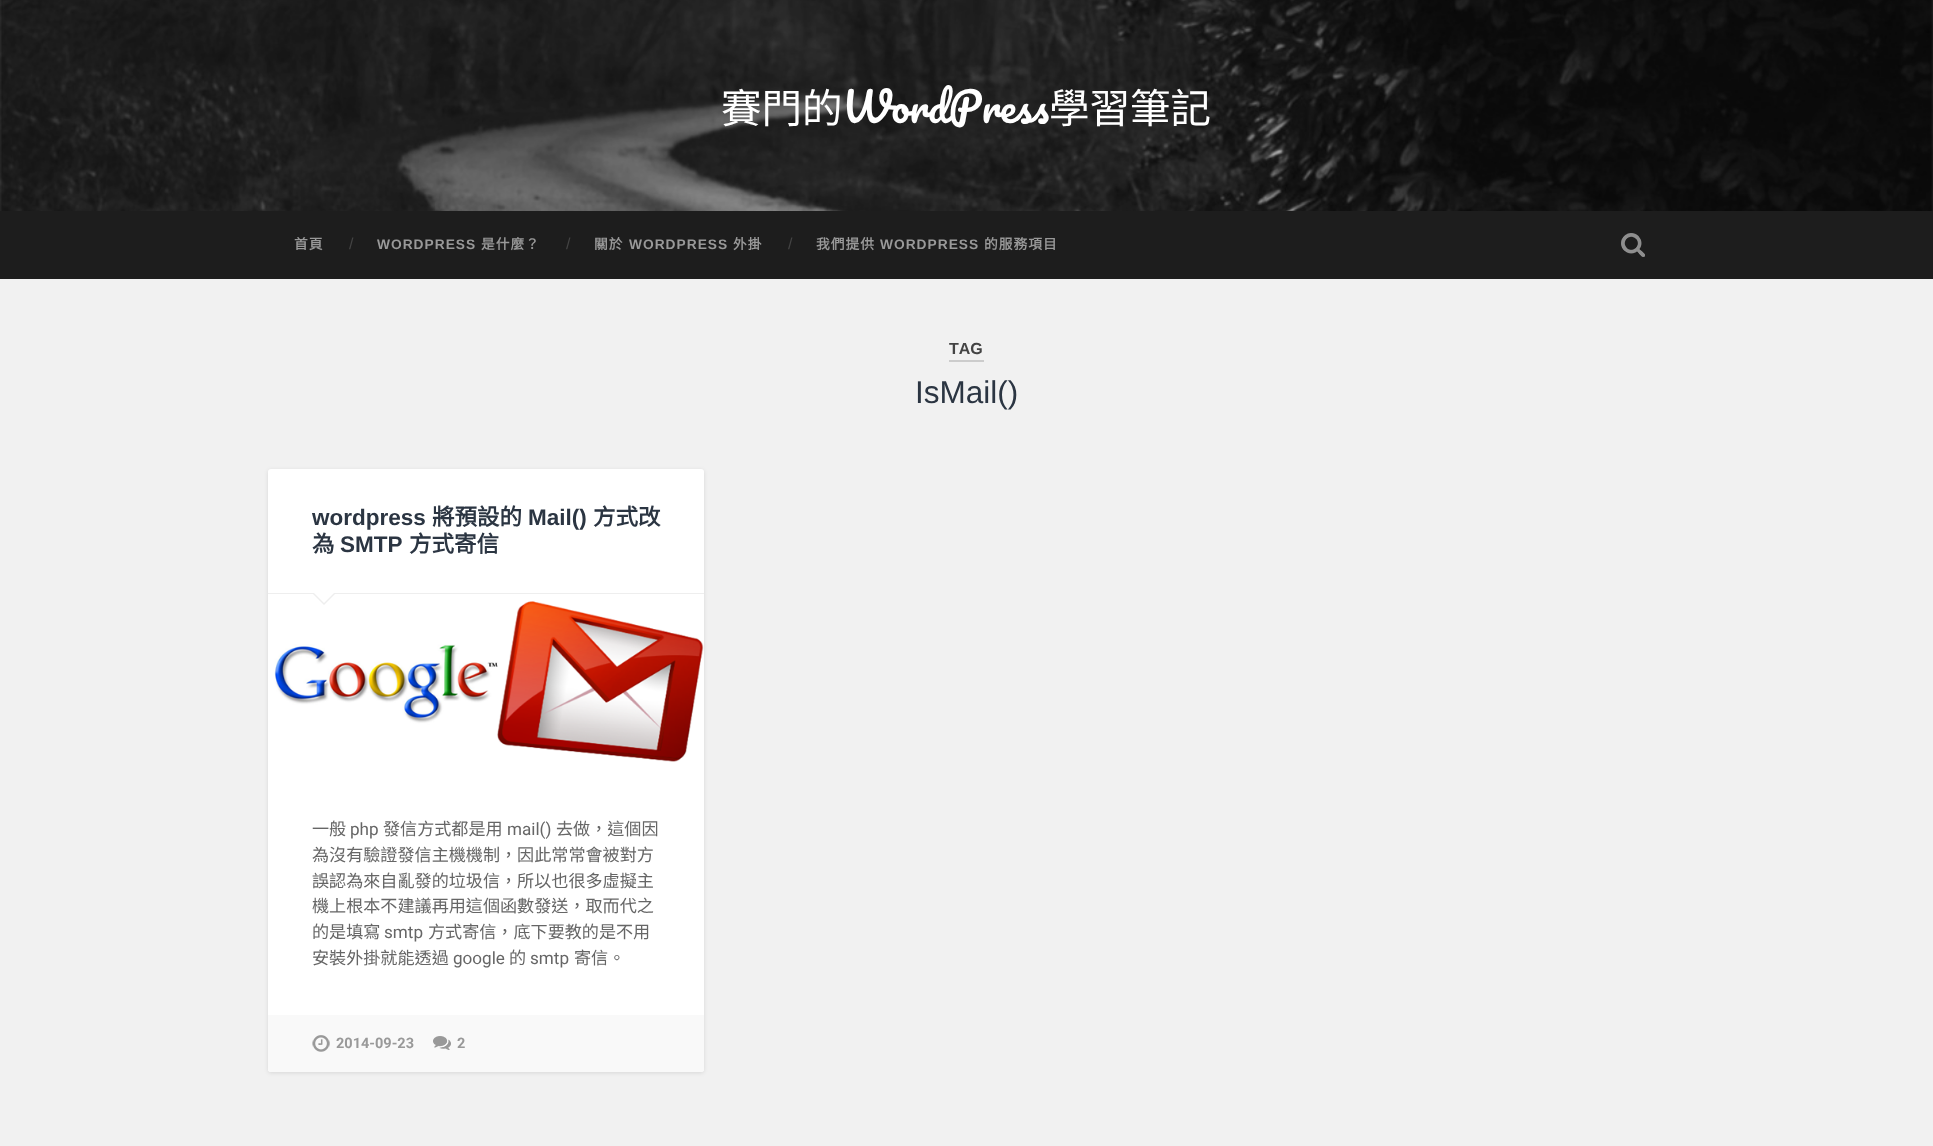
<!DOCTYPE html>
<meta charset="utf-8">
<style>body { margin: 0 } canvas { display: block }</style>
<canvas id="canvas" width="1933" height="1146"></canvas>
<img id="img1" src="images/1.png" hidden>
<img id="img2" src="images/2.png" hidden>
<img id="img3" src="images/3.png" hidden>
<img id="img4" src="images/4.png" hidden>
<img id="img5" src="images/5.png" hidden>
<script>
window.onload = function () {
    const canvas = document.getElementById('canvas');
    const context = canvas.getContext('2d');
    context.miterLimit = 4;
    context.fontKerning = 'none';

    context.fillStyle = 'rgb(241, 241, 241)';
    context.fillRect(0, 0, 1933, 1146);
    context.drawImage(document.getElementById('img1'), 0, 0, 1933, 211);
    context.fillStyle = 'rgb(29, 29, 29)';
    context.fillRect(0, 211, 1933, 68);
    context.drawImage(document.getElementById('img2'), 1621, 233, 24, 24);
    context.fillStyle = 'rgb(204, 204, 204)';
    context.fillRect(949, 360, 35, 2);
    context.fillStyle = 'rgba(0, 0, 0, 0.1)';
    context.filter = 'blur(2px)';
    context.beginPath();
    context.roundRect(268, 470, 436, 603, 3);
    context.fill();
    context.filter = 'none';
    context.fillStyle = 'rgb(255, 255, 255)';
    context.beginPath();
    context.roundRect(268, 469, 436, 603, 3);
    context.fill();
    context.fillStyle = 'rgb(238, 238, 238)';
    context.fillRect(268, 593, 436, 1);
    context.drawImage(document.getElementById('img3'), 274, 601, 430, 161);
    context.beginPath();
    context.moveTo(312, 593);
    context.lineTo(336, 593);
    context.lineTo(324, 605);
    context.closePath();
    context.fill();
    context.fillStyle = 'rgb(255, 255, 255)';
    context.beginPath();
    context.moveTo(313, 592);
    context.lineTo(335, 592);
    context.lineTo(324, 603);
    context.closePath();
    context.fill();
    context.fillStyle = 'rgb(249, 249, 249)';
    context.beginPath();
    context.roundRect(268, 1015, 436, 57, [0, 0, 3, 3]);
    context.fill();
    context.drawImage(document.getElementById('img4'), 312, 1035, 18, 17);
    context.drawImage(document.getElementById('img5'), 433, 1036, 18, 14);
    context.font = '40.5px Noto Sans CJK TC';
    context.fillStyle = 'rgb(255, 255, 255)';
    context.fillText('賽門的', 721, 123);
    context.font = '40.5px Pacifico';
    context.fillText('WordPress', 842, 123);
    context.font = '40.5px Noto Sans CJK TC';
    context.fillText('學習筆記', 1049, 123);
    context.letterSpacing = '1px';
    context.font = 'bold 13.75px Noto Sans CJK TC';
    context.fillStyle = 'rgb(153, 153, 153)';
    context.fillText('首頁', 294, 249);
    context.letterSpacing = '0px';
    context.font = '16px Liberation Sans';
    context.fillStyle = 'rgb(68, 68, 68)';
    context.fillText('/', 349, 249);
    context.letterSpacing = '1px';
    context.font = 'bold 13.75px Liberation Sans';
    context.fillStyle = 'rgb(153, 153, 153)';
    context.fillText('WORDPRESS', 377, 249);
    context.font = 'bold 13.75px Noto Sans CJK TC';
    context.fillText('是什麼？', 481, 249);
    context.letterSpacing = '0px';
    context.font = '16px Liberation Sans';
    context.fillStyle = 'rgb(68, 68, 68)';
    context.fillText('/', 566, 249);
    context.letterSpacing = '1px';
    context.font = 'bold 13.75px Noto Sans CJK TC';
    context.fillStyle = 'rgb(153, 153, 153)';
    context.fillText('關於', 594, 249);
    context.font = 'bold 13.75px Liberation Sans';
    context.fillText('WORDPRESS', 629, 249);
    context.font = 'bold 13.75px Noto Sans CJK TC';
    context.fillText('外掛', 733, 249);
    context.letterSpacing = '0px';
    context.font = '16px Liberation Sans';
    context.fillStyle = 'rgb(68, 68, 68)';
    context.fillText('/', 788, 249);
    context.letterSpacing = '1px';
    context.font = 'bold 13.75px Noto Sans CJK TC';
    context.fillStyle = 'rgb(153, 153, 153)';
    context.fillText('我們提供', 816, 249);
    context.font = 'bold 13.75px Liberation Sans';
    context.fillText('WORDPRESS', 880, 249);
    context.font = 'bold 13.75px Noto Sans CJK TC';
    context.fillText('的服務項目', 984, 249);
    context.letterSpacing = '0px';
    context.font = 'bold 16px Liberation Sans';
    context.fillStyle = 'rgb(68, 68, 68)';
    context.fillText('TAG', 949, 354);
    context.font = '31.5px Liberation Sans';
    context.fillStyle = 'rgb(43, 53, 66)';
    context.fillText('IsMail()', 915, 403);
    context.font = 'bold 22.5px Liberation Sans';
    context.fillText('wordpress', 312, 525);
    context.font = 'bold 22.5px Noto Sans CJK TC';
    context.fillText('將預設的', 432, 525);
    context.font = 'bold 22.5px Liberation Sans';
    context.fillText('Mail()', 528, 525);
    context.font = 'bold 22.5px Noto Sans CJK TC';
    context.fillText('方式改', 593, 525);
    context.fillText('為', 312, 552);
    context.font = 'bold 22.5px Liberation Sans';
    context.fillText('SMTP', 340, 552);
    context.font = 'bold 22.5px Noto Sans CJK TC';
    context.fillText('方式寄信', 409, 552);
    context.font = '17.1px Noto Sans CJK TC';
    context.fillStyle = 'rgb(102, 102, 102)';
    context.fillText('一般', 312, 835);
    context.font = '17.1px Roboto';
    context.fillText('php', 350, 835);
    context.font = '17.1px Noto Sans CJK TC';
    context.fillText('發信方式都是用', 383, 835);
    context.font = '17.1px Roboto';
    context.fillText('mail()', 507, 835);
    context.font = '17.1px Noto Sans CJK TC';
    context.fillText('去做，這個因', 556, 835);
    context.fillText('為沒有驗證發信主機機制，因此常常會被對方', 312, 861);
    context.fillText('誤認為來自亂發的垃圾信，所以也很多虛擬主', 312, 887);
    context.fillText('機上根本不建議再用這個函數發送，取而代之', 312, 912);
    context.fillText('的是填寫', 312, 938);
    context.font = '17.1px Roboto';
    context.fillText('smtp', 384, 938);
    context.font = '17.1px Noto Sans CJK TC';
    context.fillText('方式寄信，底下要教的是不用', 428, 938);
    context.fillText('安裝外掛就能透過', 312, 964);
    context.font = '17.1px Roboto';
    context.fillText('google', 453, 964);
    context.font = '17.1px Noto Sans CJK TC';
    context.fillText('的', 509, 964);
    context.font = '17.1px Roboto';
    context.fillText('smtp', 530, 964);
    context.font = '17.1px Noto Sans CJK TC';
    context.fillText('寄信。', 574, 964);
    context.font = 'bold 14.5px Roboto';
    context.fillStyle = 'rgb(153, 153, 153)';
    context.fillText('2014-09-23', 336, 1048);
    context.fillText('2', 457, 1048);
};
</script>
